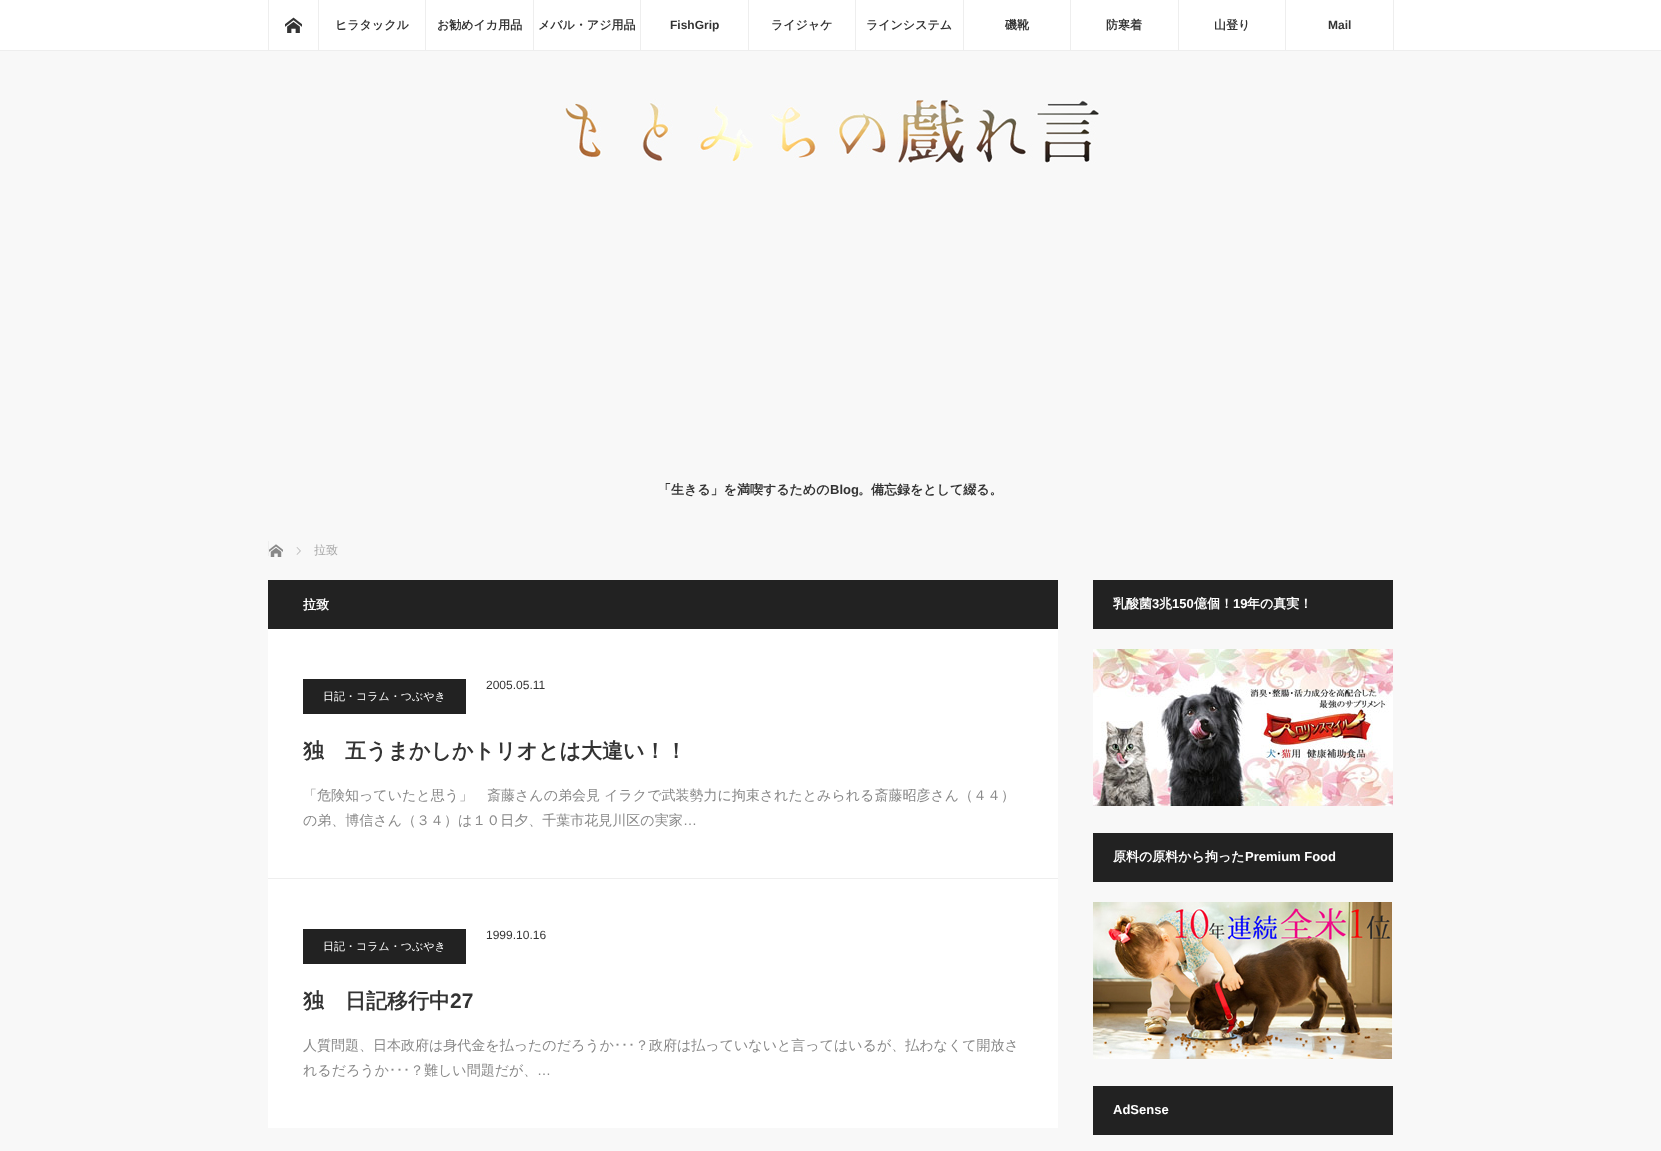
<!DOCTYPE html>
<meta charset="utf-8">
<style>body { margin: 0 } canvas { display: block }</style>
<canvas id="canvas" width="1661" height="1151"></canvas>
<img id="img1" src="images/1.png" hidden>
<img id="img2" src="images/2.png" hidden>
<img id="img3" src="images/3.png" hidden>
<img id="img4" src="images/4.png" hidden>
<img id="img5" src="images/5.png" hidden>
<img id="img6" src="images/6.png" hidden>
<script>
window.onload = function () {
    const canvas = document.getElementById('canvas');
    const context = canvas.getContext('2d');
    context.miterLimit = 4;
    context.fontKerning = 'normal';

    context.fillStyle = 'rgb(248, 248, 248)';
    context.fillRect(0, 0, 1661, 1151);
    context.fillStyle = 'rgb(255, 255, 255)';
    context.fillRect(0, 0, 1661, 50);
    context.fillStyle = 'rgb(238, 238, 238)';
    context.fillRect(0, 50, 1661, 1);
    context.fillRect(1393, 0, 1, 50);
    context.fillRect(268, 0, 1, 50);
    context.drawImage(document.getElementById('img1'), 285, 17, 17, 16);
    context.fillRect(318, 0, 1, 50);
    context.fillRect(425, 0, 1, 50);
    context.fillRect(533, 0, 1, 50);
    context.fillRect(640, 0, 1, 50);
    context.fillRect(748, 0, 1, 50);
    context.fillRect(855, 0, 1, 50);
    context.fillRect(963, 0, 1, 50);
    context.fillRect(1070, 0, 1, 50);
    context.fillRect(1178, 0, 1, 50);
    context.fillRect(1285, 0, 1, 50);
    context.drawImage(document.getElementById('img2'), 563, 99, 537, 65);
    context.fillRect(268, 541, 1, 15);
    context.drawImage(document.getElementById('img3'), 269, 544, 14, 13);
    context.drawImage(document.getElementById('img4'), 296, 547, 5, 8);
    context.fillStyle = 'rgb(255, 255, 255)';
    context.fillRect(268, 629, 790, 499);
    context.fillStyle = 'rgb(34, 34, 34)';
    context.fillRect(268, 580, 790, 49);
    context.fillStyle = 'rgb(238, 238, 238)';
    context.fillRect(268, 878, 790, 1);
    context.fillStyle = 'rgb(34, 34, 34)';
    context.fillRect(303, 679, 163, 35);
    context.fillRect(303, 929, 163, 35);
    context.fillRect(1093, 580, 300, 49);
    context.drawImage(document.getElementById('img5'), 1093, 649, 300, 157);
    context.fillRect(1093, 833, 300, 49);
    context.drawImage(document.getElementById('img6'), 1093, 902, 299, 157);
    context.fillRect(1093, 1086, 300, 49);
    context.font = 'bold 12px WenQuanYi Zen Hei';
    context.fillStyle = 'rgb(51, 51, 51)';
    context.fillText('ヒラタックル', 335, 29);
    context.fillText('お勧めイカ用品', 437, 29);
    context.fillText('メバル・アジ用品', 538, 29);
    context.font = 'bold 12px Liberation Sans';
    context.fillText('FishGrip', 670, 29);
    context.font = 'bold 12px WenQuanYi Zen Hei';
    context.fillText('ライジャケ', 771, 29);
    context.fillText('ラインシステム', 866, 29);
    context.fillText('磯靴', 1005, 29);
    context.fillText('防寒着', 1106, 29);
    context.fillText('山登り', 1214, 29);
    context.font = 'bold 12px Liberation Sans';
    context.fillText('Mail', 1328, 29);
    context.font = 'bold 13px WenQuanYi Zen Hei';
    context.fillText('「生きる」を満喫するための', 658, 494);
    context.font = 'bold 13px Liberation Sans';
    context.fillText('Blog', 830, 494);
    context.font = 'bold 13px WenQuanYi Zen Hei';
    context.fillText('。備忘録をとして綴る。', 858, 494);
    context.font = '500 12px WenQuanYi Zen Hei';
    context.fillStyle = 'rgb(170, 170, 170)';
    context.fillText('拉致', 314, 554);
    context.font = 'bold 13px WenQuanYi Zen Hei';
    context.fillStyle = 'rgb(255, 255, 255)';
    context.fillText('拉致', 303, 609);
    context.font = '12px Liberation Sans';
    context.fillStyle = 'rgb(51, 51, 51)';
    context.fillText('2005.05.11', 486, 689);
    context.font = '500 11px WenQuanYi Zen Hei';
    context.fillStyle = 'rgb(255, 255, 255)';
    context.fillText('日記・コラム・つぶやき', 323, 700);
    context.font = 'bold 21px WenQuanYi Zen Hei';
    context.fillStyle = 'rgb(51, 51, 51)';
    context.fillText('独　五うまかしかトリオとは大違い！！', 303, 758);
    context.font = '500 14px WenQuanYi Zen Hei';
    context.fillStyle = 'rgb(136, 136, 136)';
    context.fillText('「危険知っていたと思う」　斎藤さんの弟会見 イラクで武装勢力に拘束されたとみられる斎藤昭彦さん（４４）', 303, 800);
    context.fillText('の弟、博信さん（３４）は１０日夕、千葉市花見川区の実家', 303, 825);
    context.font = '14px Liberation Sans';
    context.fillText('…', 683, 825);
    context.font = '12px Liberation Sans';
    context.fillStyle = 'rgb(51, 51, 51)';
    context.fillText('1999.10.16', 486, 939);
    context.font = '500 11px WenQuanYi Zen Hei';
    context.fillStyle = 'rgb(255, 255, 255)';
    context.fillText('日記・コラム・つぶやき', 323, 950);
    context.font = 'bold 21px WenQuanYi Zen Hei';
    context.fillStyle = 'rgb(51, 51, 51)';
    context.fillText('独　日記移行中', 303, 1008);
    context.font = 'bold 21px Liberation Sans';
    context.fillText('27', 450, 1008);
    context.font = '500 14px WenQuanYi Zen Hei';
    context.fillStyle = 'rgb(136, 136, 136)';
    context.fillText('人質問題、日本政府は身代金を払ったのだろうか', 303, 1050);
    context.font = '14px IPAPGothic';
    context.fillText('･･･', 614, 1050);
    context.font = '500 14px WenQuanYi Zen Hei';
    context.fillText('？政府は払っていないと言ってはいるが、払わなくて開放さ', 635, 1050);
    context.fillText('れるだろうか', 303, 1075);
    context.font = '14px IPAPGothic';
    context.fillText('･･･', 389, 1075);
    context.font = '500 14px WenQuanYi Zen Hei';
    context.fillText('？難しい問題だが、', 410, 1075);
    context.font = '14px Liberation Sans';
    context.fillText('…', 537, 1075);
    context.font = 'bold 13px WenQuanYi Zen Hei';
    context.fillStyle = 'rgb(255, 255, 255)';
    context.fillText('乳酸菌', 1113, 608);
    context.font = 'bold 13px Liberation Sans';
    context.fillText('3', 1152, 608);
    context.font = 'bold 13px WenQuanYi Zen Hei';
    context.fillText('兆', 1159, 608);
    context.font = 'bold 13px Liberation Sans';
    context.fillText('150', 1172, 608);
    context.font = 'bold 13px WenQuanYi Zen Hei';
    context.fillText('億個！', 1194, 608);
    context.font = 'bold 13px Liberation Sans';
    context.fillText('19', 1233, 608);
    context.font = 'bold 13px WenQuanYi Zen Hei';
    context.fillText('年の真実！', 1247, 608);
    context.fillText('原料の原料から拘った', 1113, 861);
    context.font = 'bold 13px Liberation Sans';
    context.fillText('Premium Food', 1245, 861);
    context.fillText('AdSense', 1113, 1114);
};
</script>
